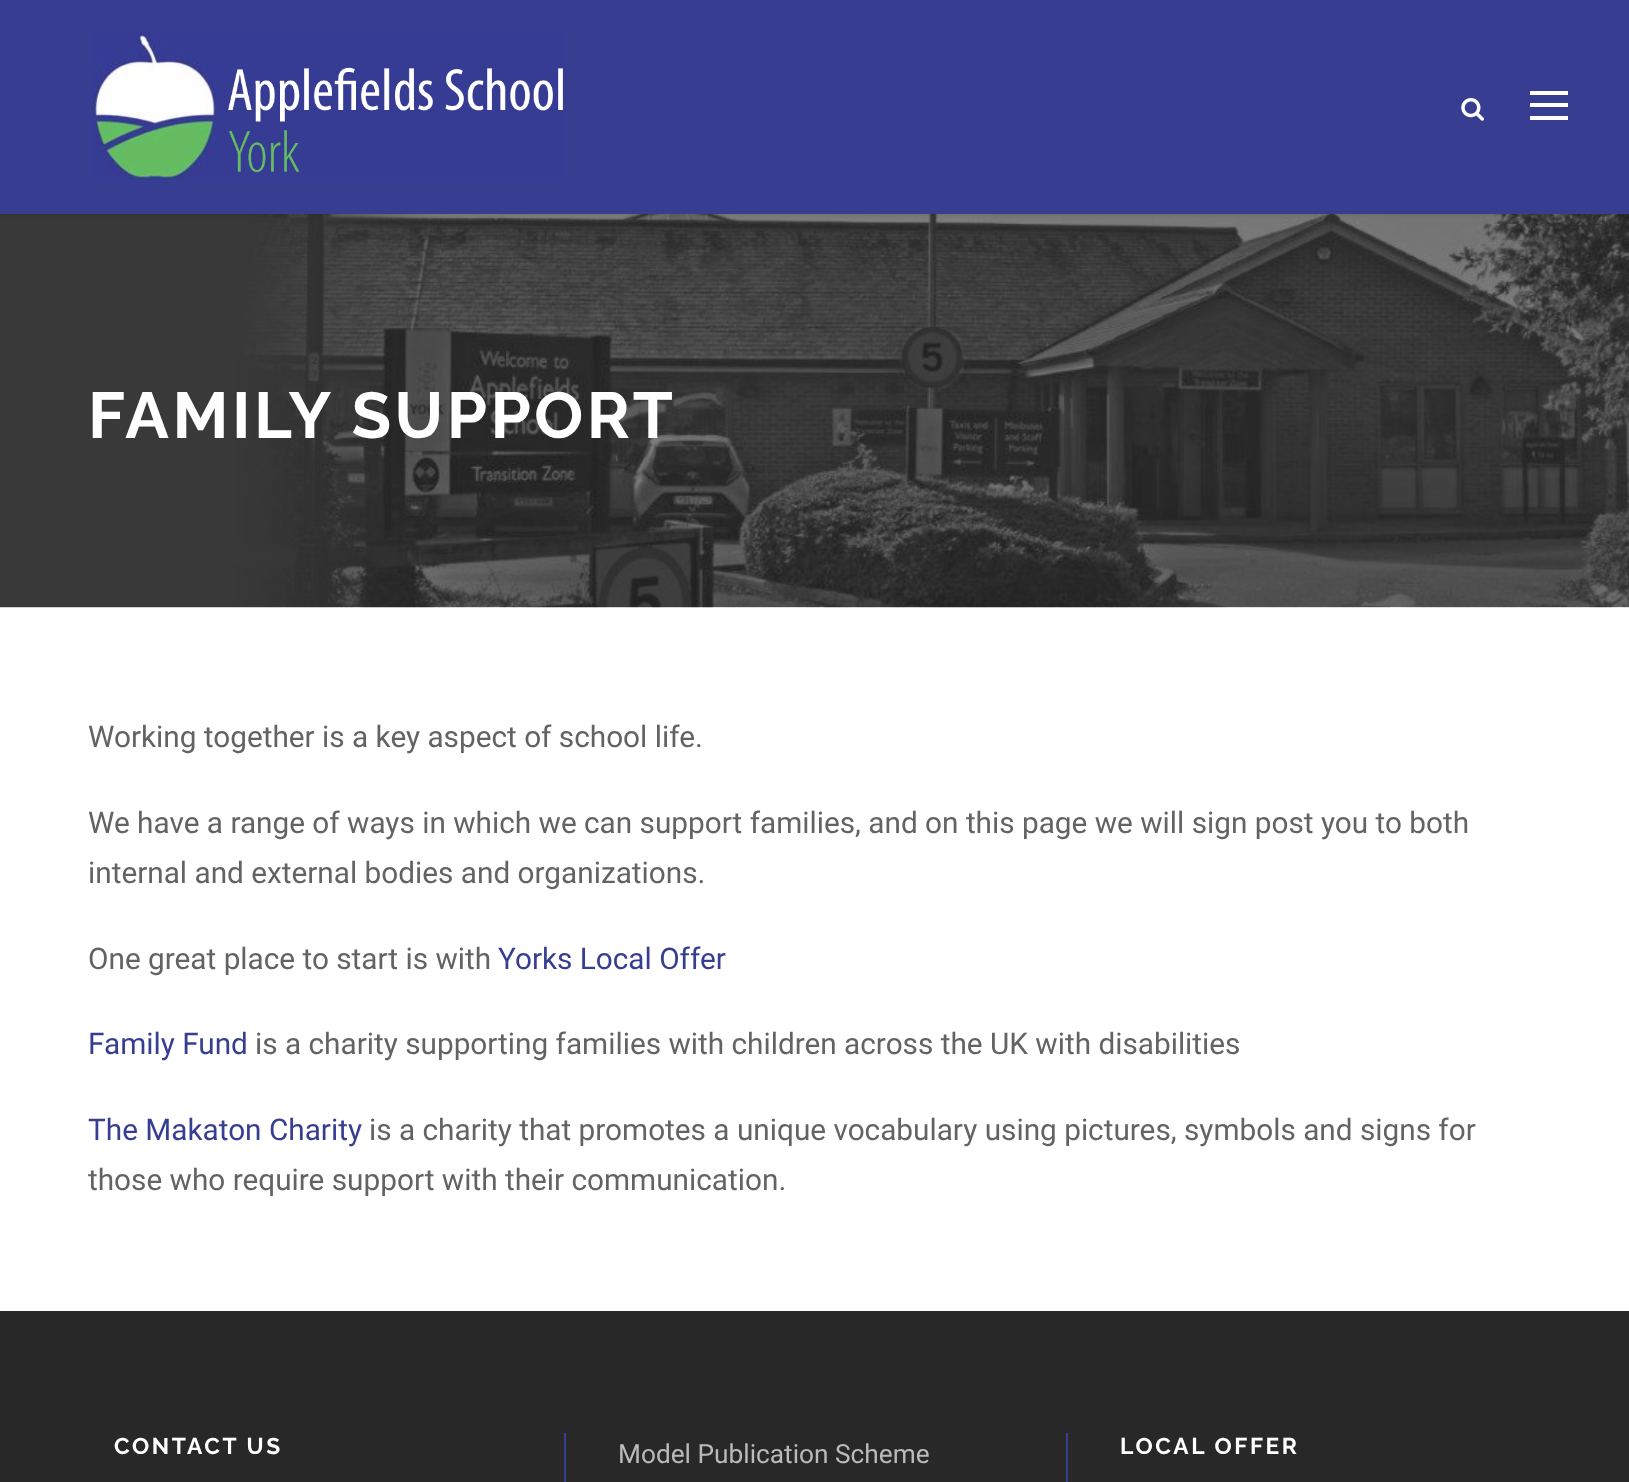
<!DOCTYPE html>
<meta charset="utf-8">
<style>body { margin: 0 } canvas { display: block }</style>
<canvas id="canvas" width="1629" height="1482"></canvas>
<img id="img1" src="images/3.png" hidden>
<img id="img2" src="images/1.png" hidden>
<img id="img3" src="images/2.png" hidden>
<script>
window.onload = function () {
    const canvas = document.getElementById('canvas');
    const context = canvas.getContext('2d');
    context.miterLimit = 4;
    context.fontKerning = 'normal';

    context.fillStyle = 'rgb(255, 255, 255)';
    context.fillRect(0, 0, 1629, 1482);
    context.drawImage(document.getElementById('img1'), 0, 214, 1629, 394);
    context.fillStyle = 'rgba(0, 0, 0, 0.1)';
    context.filter = 'blur(2px)';
    context.beginPath();
    context.rect(0, 2, 1629, 213);
    context.fill();
    context.filter = 'none';
    context.fillStyle = 'rgb(55, 62, 145)';
    context.fillRect(0, 0, 1629, 214);
    context.drawImage(document.getElementById('img2'), 92, 31, 471, 149);
    context.drawImage(document.getElementById('img3'), 1461, 98, 23, 23);
    context.fillStyle = 'rgb(255, 255, 255)';
    context.fillRect(1530, 91, 38, 4);
    context.fillRect(1530, 103, 38, 4);
    context.fillRect(1530, 116, 38, 4);
    context.fillStyle = 'rgb(40, 40, 40)';
    context.fillRect(0, 1311, 1629, 171);
    context.fillStyle = 'rgb(55, 62, 145)';
    context.fillRect(564, 1433, 2, 49);
    context.fillRect(1066, 1433, 2, 49);
    context.letterSpacing = '3.5px';
    context.font = 'bold 64.75px Raleway';
    context.fillStyle = 'rgb(255, 255, 255)';
    context.fillText('FAMILY SUPPORT', 88, 438);
    context.letterSpacing = '0px';
    context.font = '29.75px Roboto';
    context.fillStyle = 'rgb(99, 99, 99)';
    context.fillText('Working together is a key aspect of school life.', 88, 747);
    context.fillText('We have a range of ways in which we can support families, and on this page we will sign post you to both', 88, 833);
    context.fillText('internal and external bodies and organizations.', 88, 883);
    context.fillText('One great place to start is with', 88, 969);
    context.fillStyle = 'rgb(55, 62, 145)';
    context.fillText('Yorks Local Offer', 498, 969);
    context.fillText('Family Fund', 88, 1054);
    context.fillStyle = 'rgb(99, 99, 99)';
    context.fillText('is a charity supporting families with children across the UK with disabilities', 255, 1054);
    context.fillStyle = 'rgb(55, 62, 145)';
    context.fillText('The Makaton Charity', 88, 1140);
    context.fillStyle = 'rgb(99, 99, 99)';
    context.fillText('is a charity that promotes a unique vocabulary using pictures, symbols and signs for', 369, 1140);
    context.fillText('those who require support with their communication.', 88, 1190);
    context.letterSpacing = '2.6px';
    context.font = 'bold 22.75px Raleway';
    context.fillStyle = 'rgb(255, 255, 255)';
    context.fillText('CONTACT US', 114, 1454);
    context.letterSpacing = '0px';
    context.font = '26.25px Roboto';
    context.fillStyle = 'rgb(186, 186, 186)';
    context.fillText('Model Publication Scheme', 618, 1463);
    context.letterSpacing = '2.6px';
    context.font = 'bold 22.75px Raleway';
    context.fillStyle = 'rgb(255, 255, 255)';
    context.fillText('LOCAL OFFER', 1120, 1454);
};
</script>
